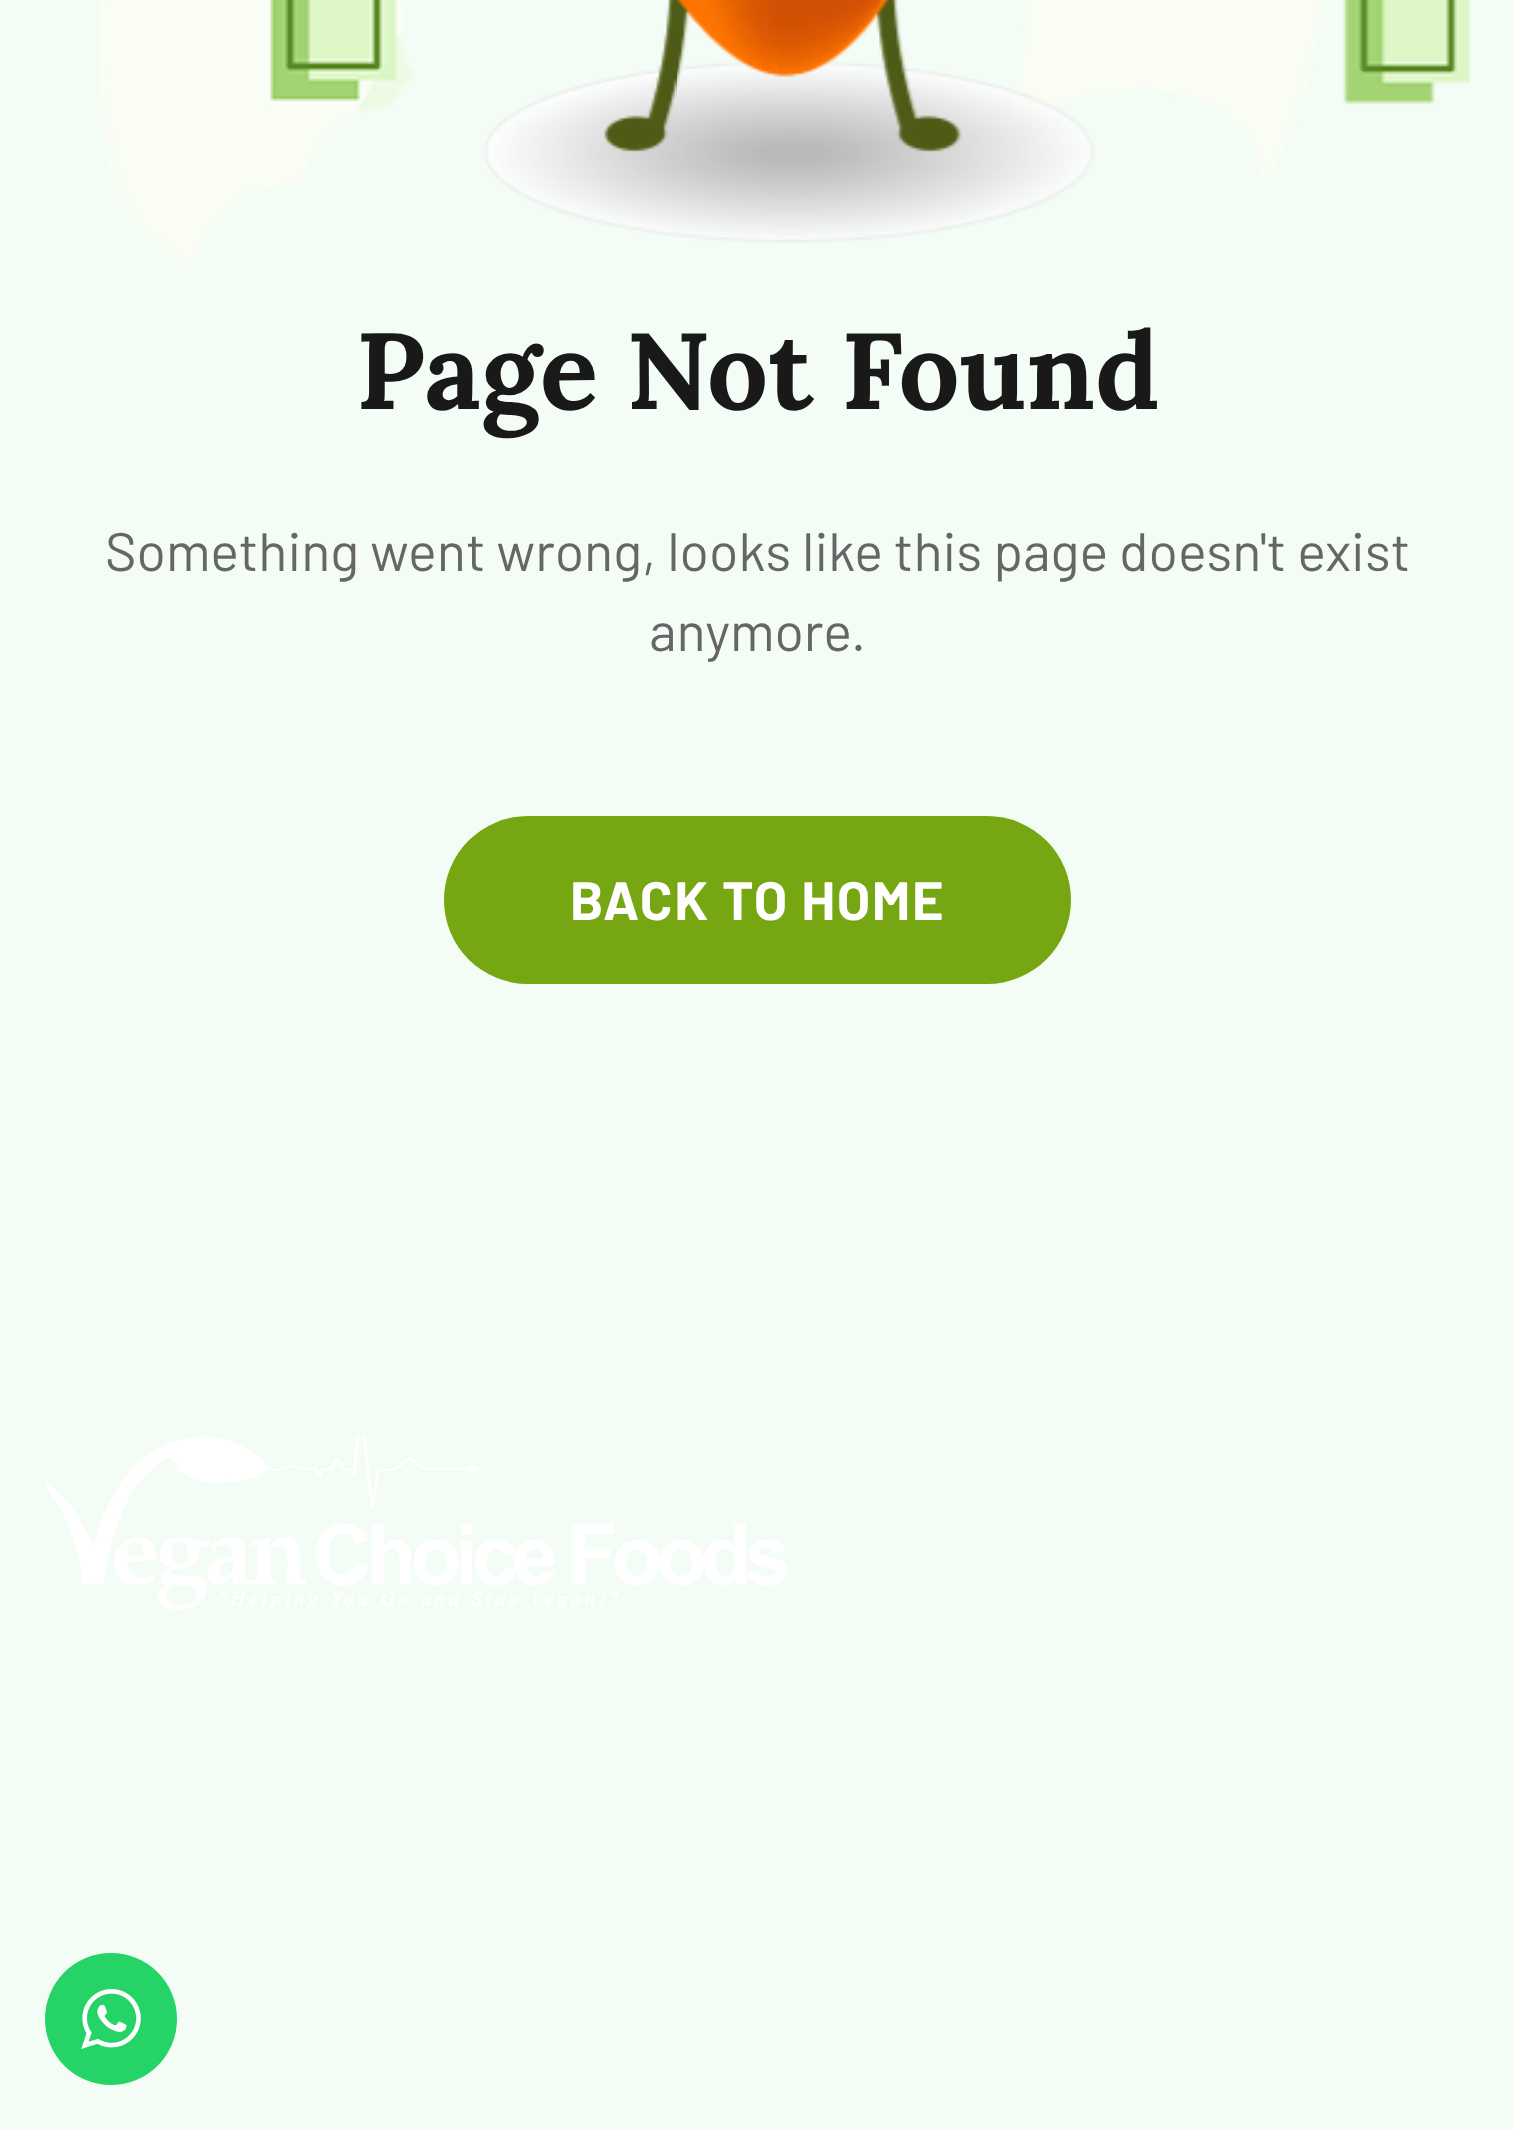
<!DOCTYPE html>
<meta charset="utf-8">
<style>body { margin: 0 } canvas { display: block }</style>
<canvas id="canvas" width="1514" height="2130"></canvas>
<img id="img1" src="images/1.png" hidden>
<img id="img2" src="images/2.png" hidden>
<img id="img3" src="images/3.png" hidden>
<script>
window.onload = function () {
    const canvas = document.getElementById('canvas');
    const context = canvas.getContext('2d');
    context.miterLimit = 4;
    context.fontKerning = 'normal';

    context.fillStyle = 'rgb(244, 253, 245)';
    context.fillRect(0, 0, 1514, 2130);
    context.drawImage(document.getElementById('img1'), 100, 0, 1370, 264);
    context.fillStyle = 'rgb(118, 167, 19)';
    context.beginPath();
    context.roundRect(444, 816, 627, 168, 84);
    context.fill();
    context.drawImage(document.getElementById('img2'), 46, 1434, 741, 176);
    context.fillStyle = 'rgb(37, 211, 102)';
    context.beginPath();
    context.arc(111, 2019, 66, 0, 2 * Math.PI);
    context.fill();
    context.drawImage(document.getElementById('img3'), 81, 1989, 60, 60);
    context.font = 'bold 108px Lora';
    context.fillStyle = 'rgb(25, 25, 25)';
    context.fillText('Page Not Found', 356, 409);
    context.font = '54px Barlow';
    context.fillStyle = 'rgb(102, 102, 102)';
    context.fillText('Something went wrong, looks like this page doesn\'t exist', 105, 571);
    context.fillText('anymore.', 649, 651);
    context.letterSpacing = '1.6px';
    context.font = 'bold 54px Barlow';
    context.fillStyle = 'rgb(255, 255, 255)';
    context.fillText('BACK TO HOME', 570, 920);
};
</script>
